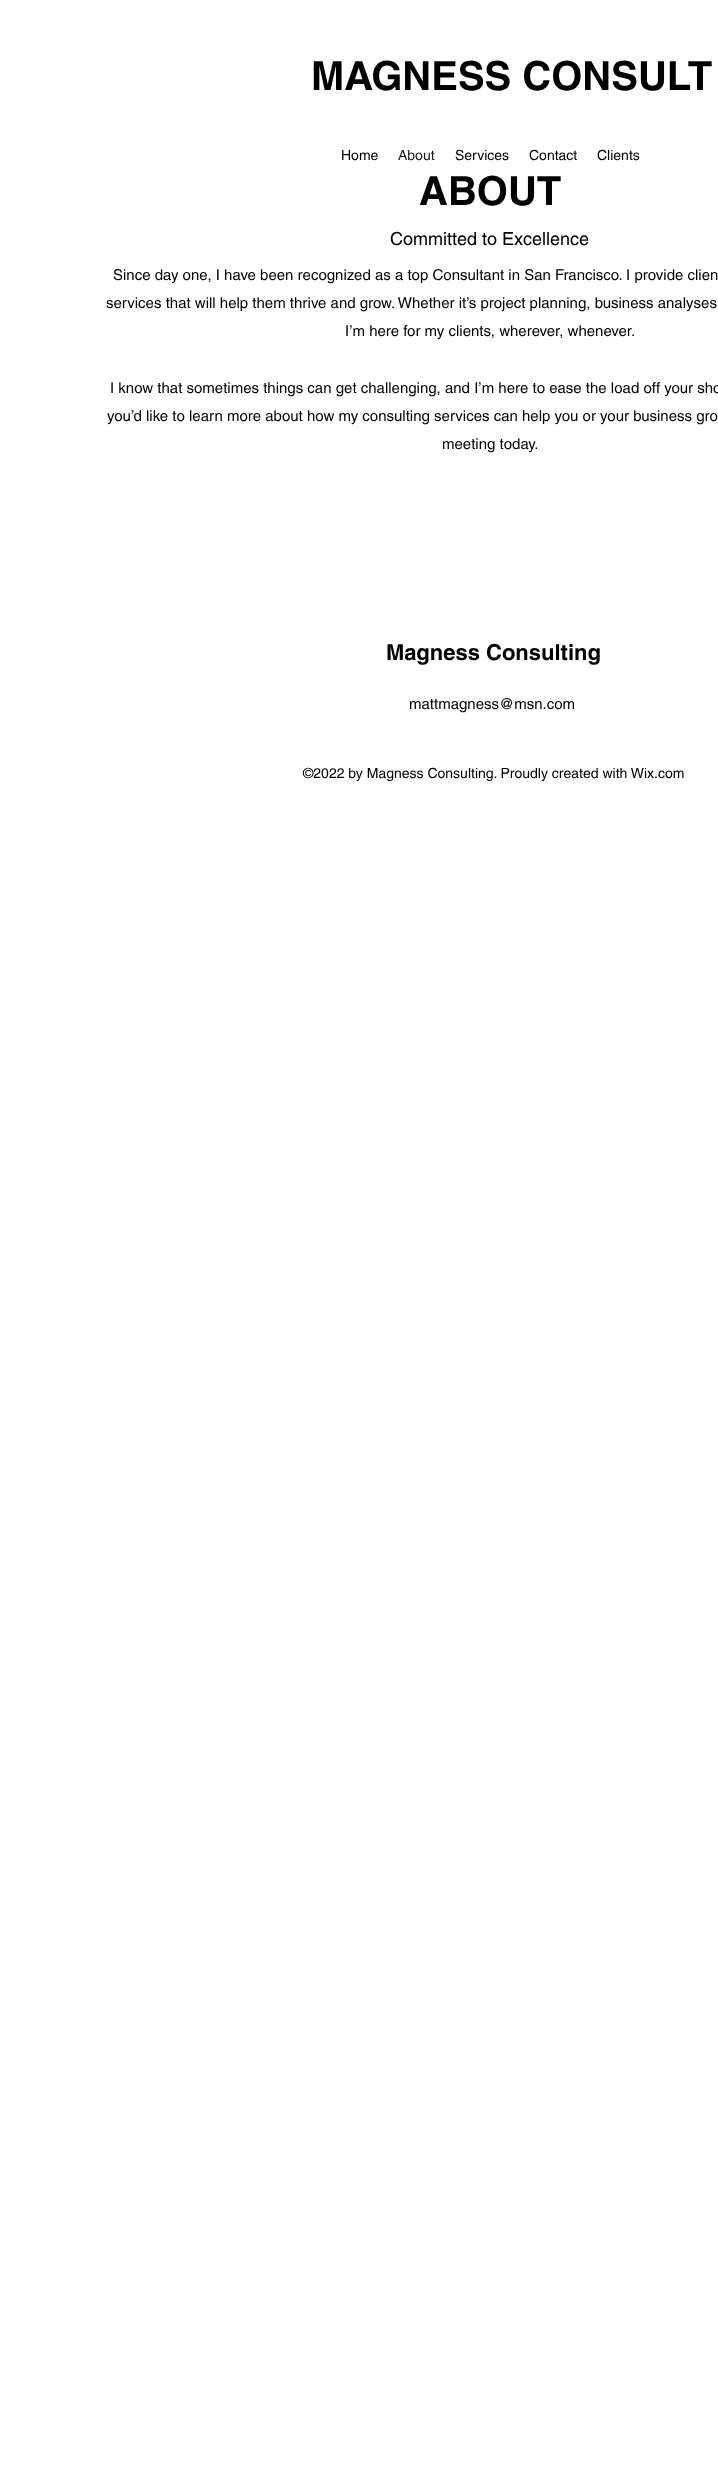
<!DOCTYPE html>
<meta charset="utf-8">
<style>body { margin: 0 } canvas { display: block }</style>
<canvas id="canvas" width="718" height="2486"></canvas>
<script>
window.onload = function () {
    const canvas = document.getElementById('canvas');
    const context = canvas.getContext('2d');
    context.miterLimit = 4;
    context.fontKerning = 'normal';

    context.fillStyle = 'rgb(255, 255, 255)';
    context.fillRect(0, 0, 718, 2486);
    context.font = 'bold 40px helvetica';
    context.fillStyle = 'rgb(0, 0, 0)';
    context.fillText('MAGNESS CONSULT', 311, 90);
    context.font = '14px helvetica';
    context.fillText('Home', 341, 160);
    context.fillStyle = 'rgb(25, 25, 25)';
    context.fillText('About', 398, 160);
    context.fillStyle = 'rgb(0, 0, 0)';
    context.fillText('Services', 455, 160);
    context.fillText('Contact', 529, 160);
    context.fillText('Clients', 597, 160);
    context.font = 'bold 40px helvetica';
    context.fillText('ABOUT', 419, 205);
    context.font = '18px helvetica';
    context.fillText('Committed to Excellence', 390, 245);
    context.font = '15px helvetica';
    context.fillText('Since day one, I have been recognized as a top Consultant in San Francisco. I provide clien', 113, 280);
    context.fillText('services that will help them thrive and grow. Whether it’s project planning, business analyses', 106, 308);
    context.fillText('I’m here for my clients, wherever, whenever.', 345, 336);
    context.fillText('I know that sometimes things can get challenging, and I’m here to ease the load off your sho', 110, 393);
    context.fillText('you’d like to learn more about how my consulting services can help you or your business gro', 107, 421);
    context.fillText('meeting today.', 442, 449);
    context.font = 'bold 22px helvetica';
    context.fillText('Magness Consulting', 386, 660);
    context.font = '15px helvetica';
    context.fillText('mattmagness@msn.com', 409, 709);
    context.font = '14px helvetica';
    context.fillText('©2022 by Magness Consulting. Proudly created with Wix.com', 303, 778);
};
</script>
